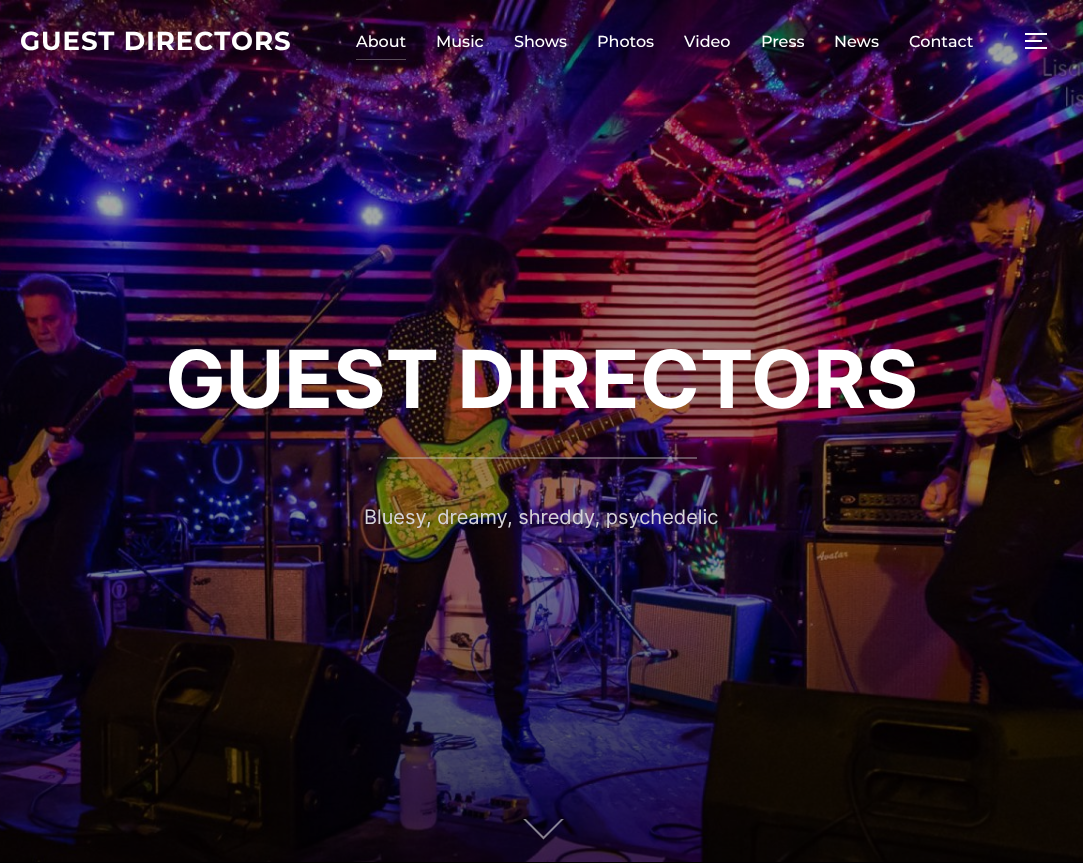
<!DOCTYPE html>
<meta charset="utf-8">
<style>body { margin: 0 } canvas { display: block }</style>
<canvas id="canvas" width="1083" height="863"></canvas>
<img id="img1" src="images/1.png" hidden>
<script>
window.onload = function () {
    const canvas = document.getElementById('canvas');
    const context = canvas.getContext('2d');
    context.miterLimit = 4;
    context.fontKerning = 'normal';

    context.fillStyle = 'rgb(0, 0, 0)';
    context.fillRect(0, 0, 1083, 863);
    context.drawImage(document.getElementById('img1'), 0, 0, 1083, 862);
    context.fillStyle = 'rgba(255, 255, 255, 0.3)';
    context.fillRect(356, 59, 50, 1);
    context.fillStyle = 'rgb(255, 255, 255)';
    context.fillRect(1025, 33, 22, 2);
    context.fillRect(1025, 40, 17, 2);
    context.fillRect(1025, 47, 22, 2);
    context.fillStyle = 'rgba(201, 201, 201, 0.4)';
    context.fillRect(387, 457, 310, 2);
    context.save();
    context.beginPath();
    context.rect(514, 819, 56, 24);
    context.clip();
    context.beginPath();
    context.moveTo(543.5, 798);
    context.lineTo(563.5, 818);
    context.lineTo(543.5, 838);
    context.lineTo(523.5, 818);
    context.closePath();
    context.strokeStyle = 'rgba(255, 255, 255, 0.5)';
    context.lineWidth = 2;
    context.stroke();
    context.restore();
    context.letterSpacing = '1px';
    context.font = 'bold 26px Montserrat';
    context.fillStyle = 'rgb(255, 255, 255)';
    context.fillText('GUEST DIRECTORS', 20, 50);
    context.letterSpacing = '0px';
    context.font = '500 16px Montserrat';
    context.fillText('About', 356, 47);
    context.fillText('Music', 436, 47);
    context.fillText('Shows', 514, 47);
    context.fillText('Photos', 597, 47);
    context.fillText('Video', 684, 47);
    context.fillText('Press', 761, 47);
    context.fillText('News', 834, 47);
    context.fillText('Contact', 909, 47);
    context.font = 'bold 80px Inter';
    context.fillText('GUEST DIRECTORS', 165, 408);
    context.font = '20px Inter';
    context.fillStyle = 'rgb(215, 212, 217)';
    context.fillText('Bluesy, dreamy, shreddy, psychedelic', 364, 524);
};
</script>
